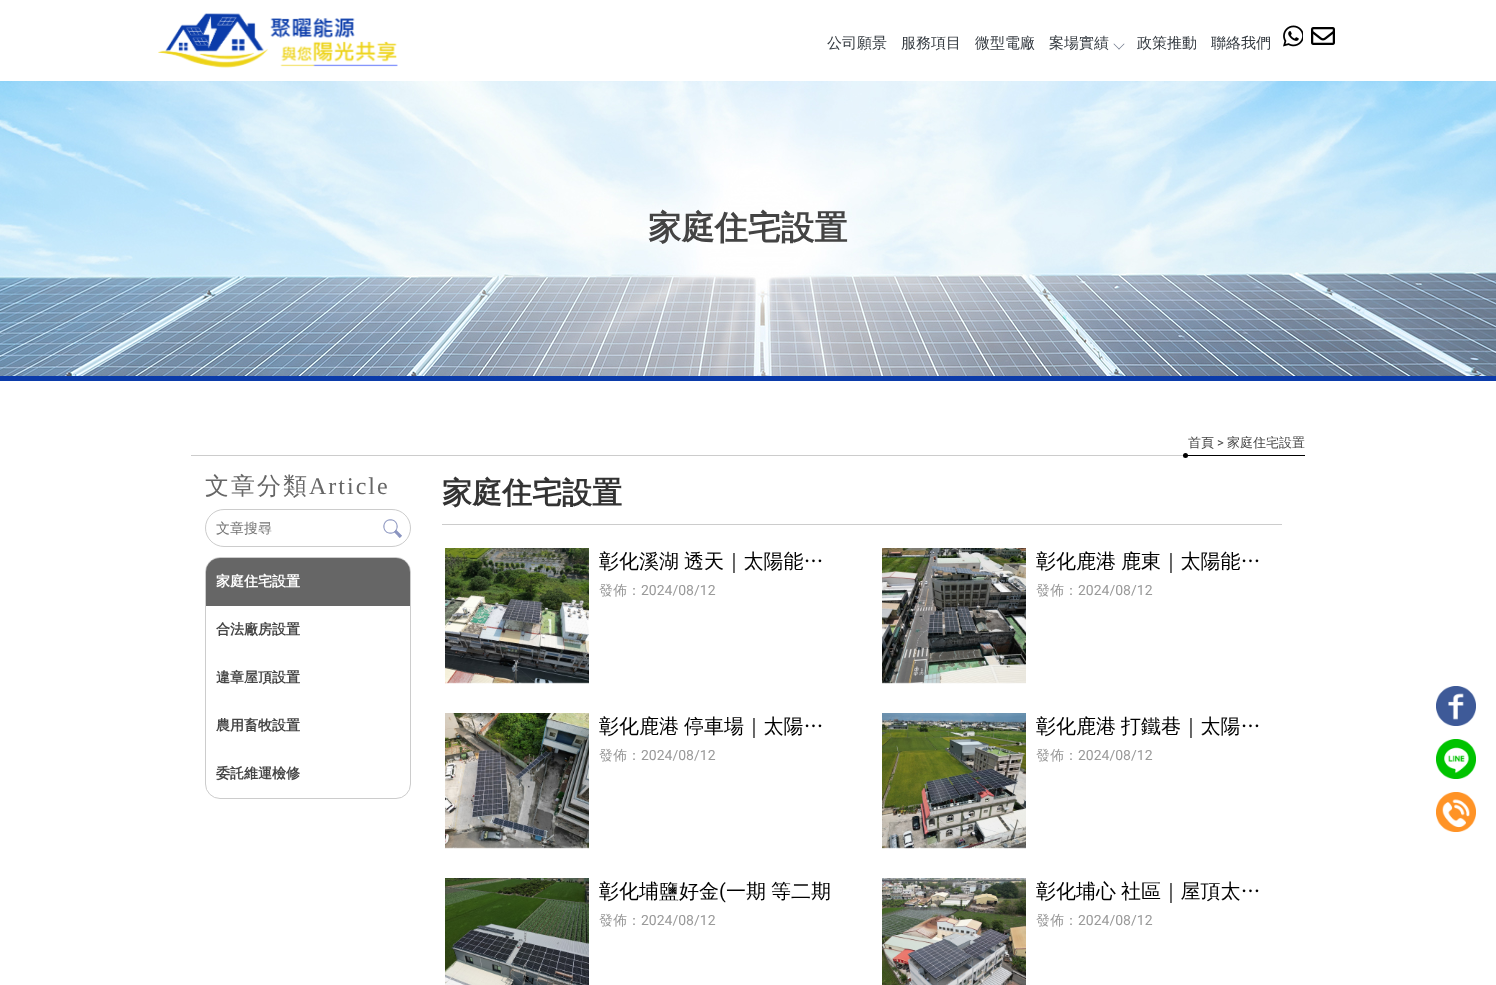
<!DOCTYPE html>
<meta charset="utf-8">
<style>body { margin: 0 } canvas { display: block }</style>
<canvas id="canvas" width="1496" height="985"></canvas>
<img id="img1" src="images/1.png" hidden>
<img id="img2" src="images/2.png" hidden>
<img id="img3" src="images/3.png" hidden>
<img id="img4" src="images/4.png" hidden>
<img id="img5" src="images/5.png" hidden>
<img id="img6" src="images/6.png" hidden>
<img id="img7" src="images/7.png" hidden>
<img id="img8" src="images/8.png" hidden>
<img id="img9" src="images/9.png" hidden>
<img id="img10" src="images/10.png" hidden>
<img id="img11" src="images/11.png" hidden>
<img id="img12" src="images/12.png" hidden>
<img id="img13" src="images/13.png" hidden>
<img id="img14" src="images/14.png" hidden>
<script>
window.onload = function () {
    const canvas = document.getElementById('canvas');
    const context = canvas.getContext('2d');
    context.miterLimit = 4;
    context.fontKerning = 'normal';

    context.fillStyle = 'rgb(255, 255, 255)';
    context.fillRect(0, 0, 1496, 985);
    context.drawImage(document.getElementById('img1'), 158, 13, 240, 55);
    context.fillStyle = 'rgb(112, 121, 139)';
    context.beginPath();
    context.moveTo(1124, 43.5);
    context.lineTo(1124.5, 44);
    context.lineTo(1119, 49.5);
    context.lineTo(1118.5, 49);
    context.closePath();
    context.fill();
    context.beginPath();
    context.moveTo(1114, 43.5);
    context.lineTo(1119.5, 49);
    context.lineTo(1119, 49.5);
    context.lineTo(1113.5, 44);
    context.closePath();
    context.fill();
    context.drawImage(document.getElementById('img2'), 1283, 25, 20, 22);
    context.drawImage(document.getElementById('img3'), 1311, 27, 24, 18);
    context.drawImage(document.getElementById('img4'), 0, 81, 1496, 300);
    context.fillStyle = 'rgb(204, 204, 204)';
    context.fillRect(191, 455, 992, 1);
    context.fillStyle = 'rgb(0, 0, 0)';
    context.fillRect(1183, 455, 122, 1);
    context.beginPath();
    context.arc(1185.5, 455.5, 2.5, 0, 2 * Math.PI);
    context.fill();
    context.beginPath();
    context.roundRect(205.5, 509.5, 205, 37, 18.5);
    context.strokeStyle = 'rgb(204, 204, 204)';
    context.stroke();
    context.drawImage(document.getElementById('img5'), 383, 519, 19, 19);
    context.beginPath();
    context.roundRect(205.5, 557.5, 205, 241, 14.5);
    context.stroke();
    context.fillStyle = 'rgb(102, 102, 102)';
    context.beginPath();
    context.roundRect(206, 558, 204, 48, [14, 14, 0, 0]);
    context.fill();
    context.fillStyle = 'rgb(204, 204, 204)';
    context.fillRect(442, 524, 840, 1);
    context.drawImage(document.getElementById('img6'), 445, 548, 144, 136);
    context.drawImage(document.getElementById('img7'), 882, 548, 144, 136);
    context.drawImage(document.getElementById('img8'), 445, 713, 144, 136);
    context.drawImage(document.getElementById('img9'), 882, 713, 144, 136);
    context.drawImage(document.getElementById('img10'), 445, 878, 144, 107);
    context.drawImage(document.getElementById('img11'), 882, 878, 144, 107);
    context.drawImage(document.getElementById('img12'), 1436, 686, 40, 40);
    context.drawImage(document.getElementById('img13'), 1436, 739, 40, 40);
    context.drawImage(document.getElementById('img14'), 1436, 792, 40, 40);
    context.font = '500 15px WenQuanYi Zen Hei';
    context.fillStyle = 'rgb(52, 58, 64)';
    context.fillText('公司願景', 827, 48);
    context.fillText('服務項目', 901, 48);
    context.fillText('微型電廠', 975, 48);
    context.fillText('案場實績', 1049, 48);
    context.fillText('政策推動', 1137, 48);
    context.fillText('聯絡我們', 1211, 48);
    context.font = 'bold 33.25px WenQuanYi Zen Hei';
    context.fillStyle = 'rgb(68, 68, 68)';
    context.fillText('家庭住宅設置', 648, 239);
    context.font = '500 13px WenQuanYi Zen Hei';
    context.fillText('首頁', 1188, 447);
    context.font = '13px Roboto';
    context.fillText('>', 1217, 447);
    context.font = '500 13px WenQuanYi Zen Hei';
    context.fillText('家庭住宅設置', 1227, 447);
    context.letterSpacing = '2px';
    context.font = '500 24px WenQuanYi Zen Hei';
    context.fillStyle = 'rgb(102, 102, 102)';
    context.fillText('文章分類', 205, 494);
    context.font = '24px Liberation Serif';
    context.fillText('Article', 309, 494);
    context.letterSpacing = '0px';
    context.font = '500 14px WenQuanYi Zen Hei';
    context.fillStyle = 'rgb(117, 117, 117)';
    context.fillText('文章搜尋', 216, 533);
    context.font = 'bold 14px WenQuanYi Zen Hei';
    context.fillStyle = 'rgb(255, 255, 255)';
    context.fillText('家庭住宅設置', 216, 586);
    context.fillStyle = 'rgb(68, 68, 68)';
    context.fillText('合法廠房設置', 216, 634);
    context.fillText('違章屋頂設置', 216, 682);
    context.fillText('農用畜牧設置', 216, 730);
    context.fillText('委託維運檢修', 216, 778);
    context.font = 'bold 30px WenQuanYi Zen Hei';
    context.fillStyle = 'rgb(51, 51, 51)';
    context.fillText('家庭住宅設置', 442, 503);
    context.wordSpacing = '-1px';
    context.font = '500 20px WenQuanYi Zen Hei';
    context.fillStyle = 'rgb(0, 0, 0)';
    context.fillText('彰化溪湖 透天｜太陽能…', 599, 568);
    context.wordSpacing = '0px';
    context.font = '500 14px WenQuanYi Zen Hei';
    context.fillStyle = 'rgb(153, 153, 153)';
    context.fillText('發佈：', 599, 595);
    context.font = '14px Roboto';
    context.fillText('2024/08/12', 641, 595);
    context.wordSpacing = '-1px';
    context.font = '500 20px WenQuanYi Zen Hei';
    context.fillStyle = 'rgb(0, 0, 0)';
    context.fillText('彰化鹿港 鹿東｜太陽能…', 1036, 568);
    context.wordSpacing = '0px';
    context.font = '500 14px WenQuanYi Zen Hei';
    context.fillStyle = 'rgb(153, 153, 153)';
    context.fillText('發佈：', 1036, 595);
    context.font = '14px Roboto';
    context.fillText('2024/08/12', 1078, 595);
    context.wordSpacing = '-1px';
    context.font = '500 20px WenQuanYi Zen Hei';
    context.fillStyle = 'rgb(0, 0, 0)';
    context.fillText('彰化鹿港 停車場｜太陽…', 599, 733);
    context.wordSpacing = '0px';
    context.font = '500 14px WenQuanYi Zen Hei';
    context.fillStyle = 'rgb(153, 153, 153)';
    context.fillText('發佈：', 599, 760);
    context.font = '14px Roboto';
    context.fillText('2024/08/12', 641, 760);
    context.wordSpacing = '-1px';
    context.font = '500 20px WenQuanYi Zen Hei';
    context.fillStyle = 'rgb(0, 0, 0)';
    context.fillText('彰化鹿港 打鐵巷｜太陽…', 1036, 733);
    context.wordSpacing = '0px';
    context.font = '500 14px WenQuanYi Zen Hei';
    context.fillStyle = 'rgb(153, 153, 153)';
    context.fillText('發佈：', 1036, 760);
    context.font = '14px Roboto';
    context.fillText('2024/08/12', 1078, 760);
    context.font = '500 20px WenQuanYi Zen Hei';
    context.fillStyle = 'rgb(0, 0, 0)';
    context.fillText('彰化埔鹽好金', 599, 898);
    context.font = '20px Roboto';
    context.fillText('(', 719, 898);
    context.wordSpacing = '-1px';
    context.font = '500 20px WenQuanYi Zen Hei';
    context.fillText('一期 等二期', 726, 898);
    context.wordSpacing = '0px';
    context.font = '500 14px WenQuanYi Zen Hei';
    context.fillStyle = 'rgb(153, 153, 153)';
    context.fillText('發佈：', 599, 925);
    context.font = '14px Roboto';
    context.fillText('2024/08/12', 641, 925);
    context.wordSpacing = '-1px';
    context.font = '500 20px WenQuanYi Zen Hei';
    context.fillStyle = 'rgb(0, 0, 0)';
    context.fillText('彰化埔心 社區｜屋頂太…', 1036, 898);
    context.wordSpacing = '0px';
    context.font = '500 14px WenQuanYi Zen Hei';
    context.fillStyle = 'rgb(153, 153, 153)';
    context.fillText('發佈：', 1036, 925);
    context.font = '14px Roboto';
    context.fillText('2024/08/12', 1078, 925);
};
</script>
